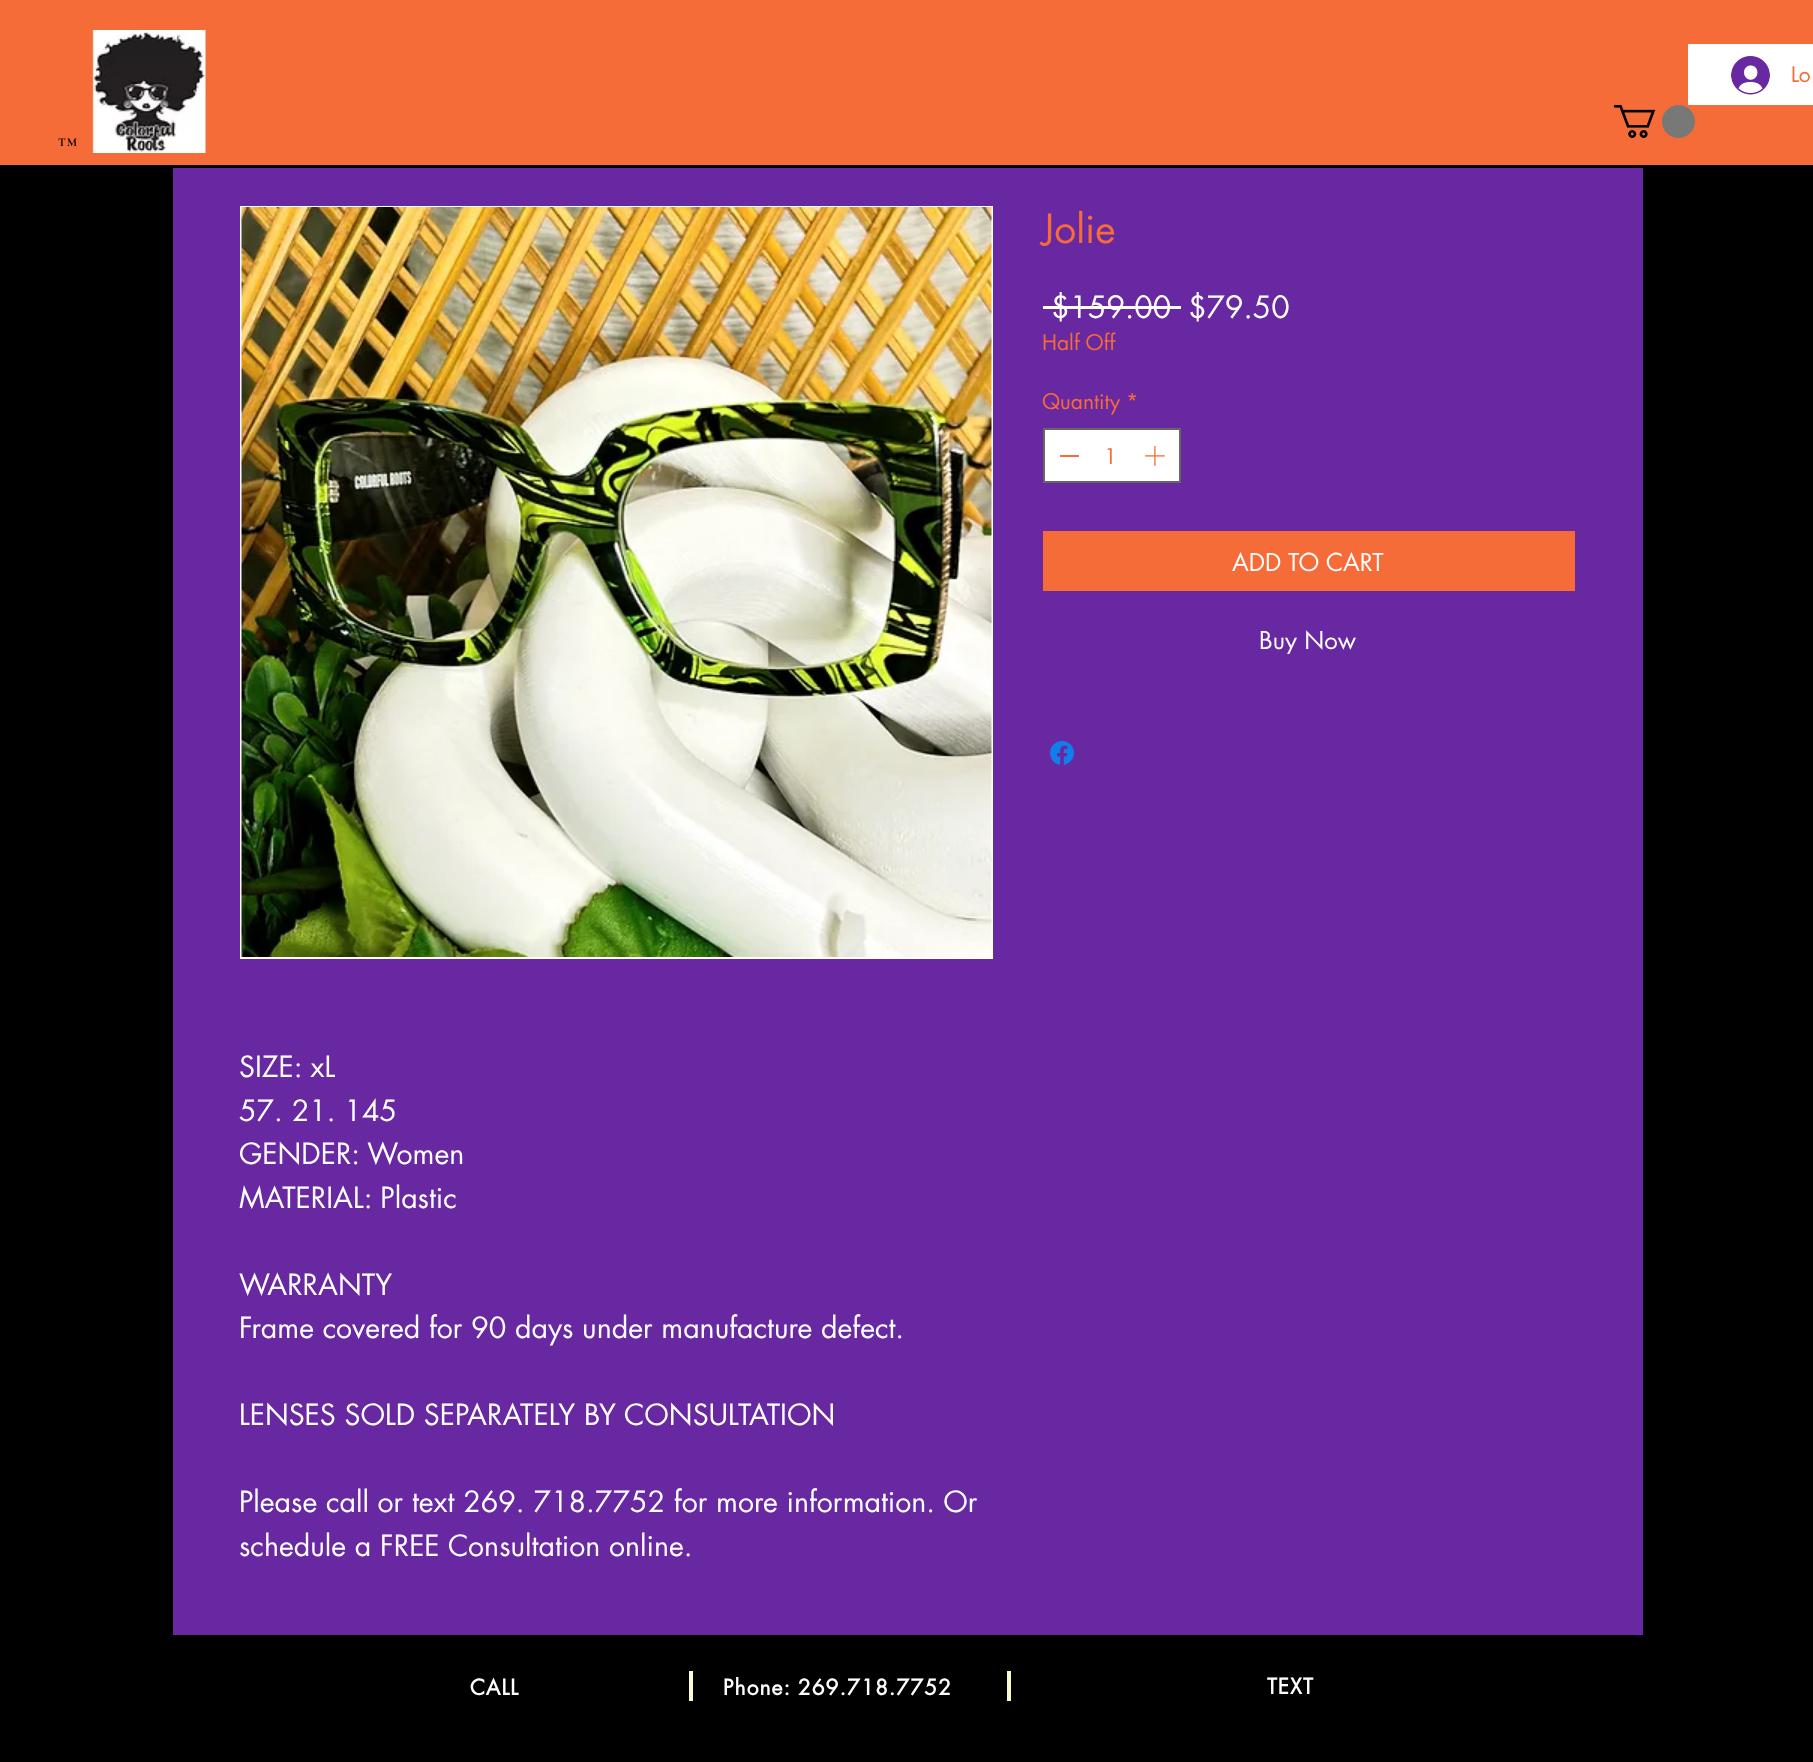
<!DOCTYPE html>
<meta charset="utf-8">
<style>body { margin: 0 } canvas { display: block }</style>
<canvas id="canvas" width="1813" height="1762"></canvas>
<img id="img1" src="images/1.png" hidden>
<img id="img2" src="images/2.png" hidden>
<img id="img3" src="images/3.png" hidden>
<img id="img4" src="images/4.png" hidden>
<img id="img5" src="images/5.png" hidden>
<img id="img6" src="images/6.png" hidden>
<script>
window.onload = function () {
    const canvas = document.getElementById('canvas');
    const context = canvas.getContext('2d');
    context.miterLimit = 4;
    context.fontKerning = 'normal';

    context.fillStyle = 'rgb(0, 0, 0)';
    context.fillRect(0, 0, 1813, 1762);
    context.fillStyle = 'rgb(245, 108, 56)';
    context.fillRect(0, 0, 1813, 165);
    context.drawImage(document.getElementById('img1'), 92, 30, 114, 123);
    context.fillStyle = 'rgb(255, 255, 255)';
    context.fillRect(1688, 44, 125, 61);
    context.drawImage(document.getElementById('img2'), 1731, 56, 39, 39);
    context.drawImage(document.getElementById('img3'), 1614, 105, 81, 33);
    context.fillStyle = 'rgb(104, 40, 161)';
    context.fillRect(173, 168, 1470, 1467);
    context.fillStyle = 'rgb(255, 255, 255)';
    context.fillRect(1043, 306, 138, 3);
    context.beginPath();
    context.rect(1044, 429, 136, 53);
    context.fill();
    context.strokeStyle = 'rgb(102, 102, 102)';
    context.lineWidth = 2;
    context.stroke();
    context.fillStyle = 'rgb(245, 108, 56)';
    context.fillRect(1060, 455, 19, 2);
    context.drawImage(document.getElementById('img4'), 1145, 446, 20, 20);
    context.fillRect(1043, 531, 532, 60);
    context.drawImage(document.getElementById('img5'), 1050, 741, 24, 24);
    context.strokeStyle = 'rgb(255, 255, 255)';
    context.strokeRect(241, 207, 751, 751);
    context.drawImage(document.getElementById('img6'), 241, 207, 751, 750);
    context.fillStyle = 'rgb(251, 251, 210)';
    context.fillRect(689, 1671, 4, 30);
    context.fillRect(1007, 1671, 4, 30);
    context.font = '21px futura';
    context.fillStyle = 'rgb(245, 108, 56)';
    context.fillText('Lo', 1791, 82);
    context.letterSpacing = '1px';
    context.font = 'bold 12px Cormorant Garamond';
    context.fillStyle = 'rgb(0, 0, 0)';
    context.fillText('TM', 58, 146);
    context.letterSpacing = '0px';
    context.font = '39px futura';
    context.fillStyle = 'rgb(245, 108, 56)';
    context.fillText('Jolie', 1042, 243);
    context.font = '30px futura';
    context.fillStyle = 'rgb(255, 255, 255)';
    context.fillText('$159.00', 1051, 318);
    context.fillText('$79.50', 1188, 318);
    context.font = '21px futura';
    context.fillStyle = 'rgb(245, 108, 56)';
    context.fillText('Half Off', 1042, 350);
    context.fillText('Quantity', 1042, 409);
    context.fillText('*', 1126, 409);
    context.fillText('1', 1104, 464);
    context.font = '24px futura';
    context.fillStyle = 'rgb(255, 255, 255)';
    context.fillText('ADD TO CART', 1232, 571);
    context.save();
    context.beginPath();
    context.rect(1260, 624, 96, 30);
    context.clip();
    context.fillText('Buy Now', 1259, 649);
    context.restore();
    context.font = '28.5px futura';
    context.fillText('SIZE: xL', 239, 1077);
    context.fillText('57. 21. 145', 239, 1121);
    context.fillText('GENDER: Women', 239, 1164);
    context.fillText('MATERIAL: Plastic', 239, 1208);
    context.fillText('WARRANTY', 239, 1295);
    context.fillText('Frame covered for 90 days under manufacture defect.', 239, 1338);
    context.fillText('LENSES SOLD SEPARATELY BY CONSULTATION', 239, 1425);
    context.fillText('Please call or text 269. 718.7752 for more information. Or', 239, 1512);
    context.fillText('schedule a FREE', 239, 1556);
    context.fillText('Consultation online.', 448, 1556);
    context.letterSpacing = '1px';
    context.font = 'bold 21px futura';
    context.fillText('CALL', 470, 1695);
    context.fillText('Phone: 269.718.7752', 723, 1695);
    context.fillText('TEXT', 1267, 1694);
};
</script>
